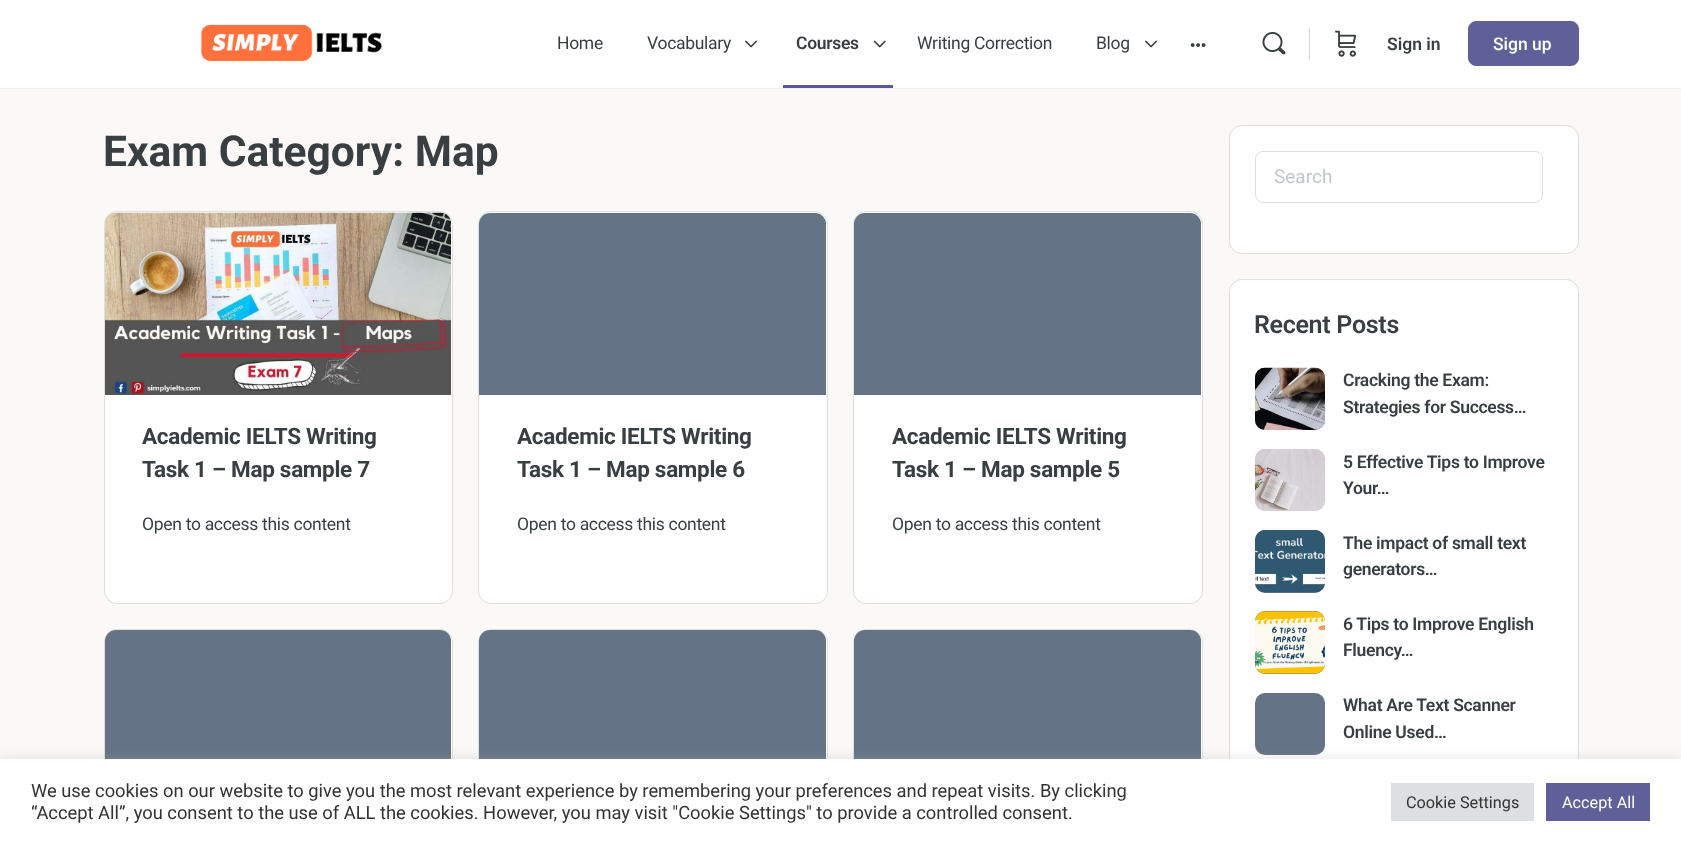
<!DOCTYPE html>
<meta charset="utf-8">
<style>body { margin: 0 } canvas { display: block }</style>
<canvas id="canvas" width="1681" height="845"></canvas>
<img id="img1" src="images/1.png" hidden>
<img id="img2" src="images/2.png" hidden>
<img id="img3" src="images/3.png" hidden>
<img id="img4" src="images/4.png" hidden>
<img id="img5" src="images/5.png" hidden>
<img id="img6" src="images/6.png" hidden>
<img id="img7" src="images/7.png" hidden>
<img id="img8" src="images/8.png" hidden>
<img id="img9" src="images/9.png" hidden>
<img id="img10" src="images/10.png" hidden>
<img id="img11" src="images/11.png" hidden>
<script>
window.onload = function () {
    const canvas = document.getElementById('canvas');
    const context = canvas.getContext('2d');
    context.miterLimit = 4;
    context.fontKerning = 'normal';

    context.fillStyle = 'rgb(250, 249, 247)';
    context.fillRect(0, 0, 1681, 845);
    context.fillStyle = 'rgb(242, 241, 240)';
    context.fillRect(0, 88, 1681, 1);
    context.fillStyle = 'rgb(255, 255, 255)';
    context.fillRect(0, 0, 1681, 88);
    context.drawImage(document.getElementById('img1'), 200, 24, 182, 37);
    context.drawImage(document.getElementById('img2'), 745, 40, 12, 8);
    context.fillStyle = 'rgb(89, 89, 153)';
    context.fillRect(783, 85, 110, 3);
    context.drawImage(document.getElementById('img3'), 873, 40, 13, 8);
    context.drawImage(document.getElementById('img2'), 1145, 40, 12, 8);
    context.drawImage(document.getElementById('img4'), 1190, 43, 16, 4);
    context.drawImage(document.getElementById('img5'), 1262, 32, 24, 23);
    context.fillStyle = 'rgb(215, 216, 217)';
    context.fillRect(1309, 29, 1, 30);
    context.drawImage(document.getElementById('img6'), 1335, 30, 22, 27);
    context.fillStyle = 'rgb(96, 96, 153)';
    context.beginPath();
    context.roundRect(1468.5, 21.5, 110, 44, 7.5);
    context.fill();
    context.strokeStyle = 'rgb(96, 96, 153)';
    context.stroke();
    context.fillStyle = 'rgb(255, 255, 255)';
    context.beginPath();
    context.roundRect(104.5, 211.5, 348, 392, 12.5);
    context.fill();
    context.strokeStyle = 'rgb(224, 223, 219)';
    context.stroke();
    context.drawImage(document.getElementById('img7'), 105, 212, 346, 183);
    context.beginPath();
    context.roundRect(478.5, 211.5, 349, 392, 12.5);
    context.fill();
    context.stroke();
    context.fillStyle = 'rgb(100, 115, 133)';
    context.beginPath();
    context.roundRect(479, 213, 347, 182, [11, 11, 0, 0]);
    context.fill();
    context.fillStyle = 'rgb(255, 255, 255)';
    context.beginPath();
    context.roundRect(853.5, 211.5, 349, 392, 12.5);
    context.fill();
    context.stroke();
    context.fillStyle = 'rgb(100, 115, 133)';
    context.beginPath();
    context.roundRect(854, 213, 347, 182, [11, 11, 0, 0]);
    context.fill();
    context.fillStyle = 'rgb(255, 255, 255)';
    context.beginPath();
    context.roundRect(104.5, 629.5, 348, 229, 12.5);
    context.fill();
    context.stroke();
    context.fillStyle = 'rgb(100, 115, 133)';
    context.beginPath();
    context.roundRect(105, 630, 346, 183, [11, 11, 0, 0]);
    context.fill();
    context.fillStyle = 'rgb(255, 255, 255)';
    context.beginPath();
    context.roundRect(478.5, 629.5, 349, 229, 12.5);
    context.fill();
    context.stroke();
    context.fillStyle = 'rgb(100, 115, 133)';
    context.beginPath();
    context.roundRect(479, 630, 347, 183, [11, 11, 0, 0]);
    context.fill();
    context.fillStyle = 'rgb(255, 255, 255)';
    context.beginPath();
    context.roundRect(853.5, 629.5, 349, 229, 12.5);
    context.fill();
    context.stroke();
    context.fillStyle = 'rgb(100, 115, 133)';
    context.beginPath();
    context.roundRect(854, 630, 347, 183, [11, 11, 0, 0]);
    context.fill();
    context.fillStyle = 'rgb(255, 255, 255)';
    context.beginPath();
    context.roundRect(1229.5, 125.5, 349, 128, 12.5);
    context.fill();
    context.stroke();
    context.beginPath();
    context.roundRect(1255.5, 151.5, 287, 51, 7.5);
    context.stroke();
    context.beginPath();
    context.roundRect(1229.5, 279.5, 349, 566, 12.5);
    context.fill();
    context.stroke();
    context.fillStyle = 'rgb(100, 115, 133)';
    context.beginPath();
    context.roundRect(1255, 368, 70, 62, 10);
    context.fill();
    context.drawImage(document.getElementById('img8'), 1255, 367, 70, 63);
    context.drawImage(document.getElementById('img9'), 1255, 449, 70, 62);
    context.beginPath();
    context.roundRect(1255, 530, 70, 63, 10);
    context.fill();
    context.drawImage(document.getElementById('img10'), 1255, 530, 70, 63);
    context.beginPath();
    context.roundRect(1255, 611, 70, 63, 10);
    context.fill();
    context.drawImage(document.getElementById('img11'), 1255, 611, 70, 63);
    context.beginPath();
    context.roundRect(1255, 693, 70, 62, 10);
    context.fill();
    context.fillStyle = 'rgba(172, 171, 171, 0.3)';
    context.filter = 'blur(6px)';
    context.beginPath();
    context.rect(0, 758, 1681, 86);
    context.fill();
    context.filter = 'none';
    context.fillStyle = 'rgb(255, 255, 255)';
    context.fillRect(0, 759, 1681, 86);
    context.fillStyle = 'rgb(222, 223, 224)';
    context.fillRect(1391, 783, 143, 38);
    context.fillStyle = 'rgb(96, 96, 153)';
    context.fillRect(1546, 783, 104, 38);
    context.letterSpacing = '-0.3px';
    context.font = '17.5px Roboto';
    context.fillStyle = 'rgb(57, 62, 65)';
    context.fillText('Home', 557, 49);
    context.fillText('Vocabulary', 647, 49);
    context.font = '600 17.5px Roboto';
    context.fillText('Courses', 796, 49);
    context.font = '17.5px Roboto';
    context.fillText('Writing Correction', 917, 49);
    context.fillText('Blog', 1096, 49);
    context.letterSpacing = '0px';
    context.font = '600 17.5px Roboto';
    context.fillText('Sign in', 1387, 50);
    context.font = '500 17.5px Roboto';
    context.fillStyle = 'rgb(255, 255, 255)';
    context.fillText('Sign up', 1493, 50);
    context.font = 'bold 42.5px Roboto';
    context.fillStyle = 'rgb(57, 62, 65)';
    context.fillText('Exam Category: Map', 103, 166);
    context.letterSpacing = '-0.3px';
    context.font = 'bold 22.5px Roboto';
    context.fillText('Academic IELTS Writing', 142, 444);
    context.fillText('Task 1 – Map sample 7', 142, 477);
    context.font = '17.5px Roboto';
    context.fillText('Open to access this content', 142, 530);
    context.font = 'bold 22.5px Roboto';
    context.fillText('Academic IELTS Writing', 517, 444);
    context.fillText('Task 1 – Map sample 6', 517, 477);
    context.font = '17.5px Roboto';
    context.fillText('Open to access this content', 517, 530);
    context.font = 'bold 22.5px Roboto';
    context.fillText('Academic IELTS Writing', 892, 444);
    context.fillText('Task 1 – Map sample 5', 892, 477);
    context.font = '17.5px Roboto';
    context.fillText('Open to access this content', 892, 530);
    context.letterSpacing = '0px';
    context.font = '19px Roboto';
    context.fillStyle = 'rgb(195, 198, 201)';
    context.fillText('Search', 1274, 183);
    context.letterSpacing = '-0.3px';
    context.font = '600 25px Roboto';
    context.fillStyle = 'rgb(57, 62, 65)';
    context.fillText('Recent Posts', 1254, 333);
    context.font = '600 17.5px Roboto';
    context.fillText('Cracking the Exam:', 1343, 386);
    context.fillText('Strategies for Success…', 1343, 413);
    context.fillText('5 Effective Tips to Improve', 1343, 468);
    context.fillText('Your…', 1343, 494);
    context.fillText('The impact of small text', 1343, 549);
    context.fillText('generators…', 1343, 575);
    context.fillText('6 Tips to Improve English', 1343, 630);
    context.fillText('Fluency…', 1343, 656);
    context.fillText('What Are Text Scanner', 1343, 711);
    context.fillText('Online Used…', 1343, 738);
    context.letterSpacing = '0px';
    context.font = '18.33px Roboto';
    context.fillStyle = 'rgb(51, 51, 51)';
    context.fillText('We use cookies on our website to give you the most relevant experience by remembering your preferences and repeat visits. By clicking', 31, 797);
    context.fillText('“Accept All”, you consent to the use of ALL the cookies. However, you may visit "Cookie Settings" to provide a controlled consent.', 31, 819);
    context.font = '16.25px Roboto';
    context.fillText('Cookie Settings', 1406, 808);
    context.fillStyle = 'rgb(255, 255, 255)';
    context.fillText('Accept All', 1562, 808);
};
</script>
